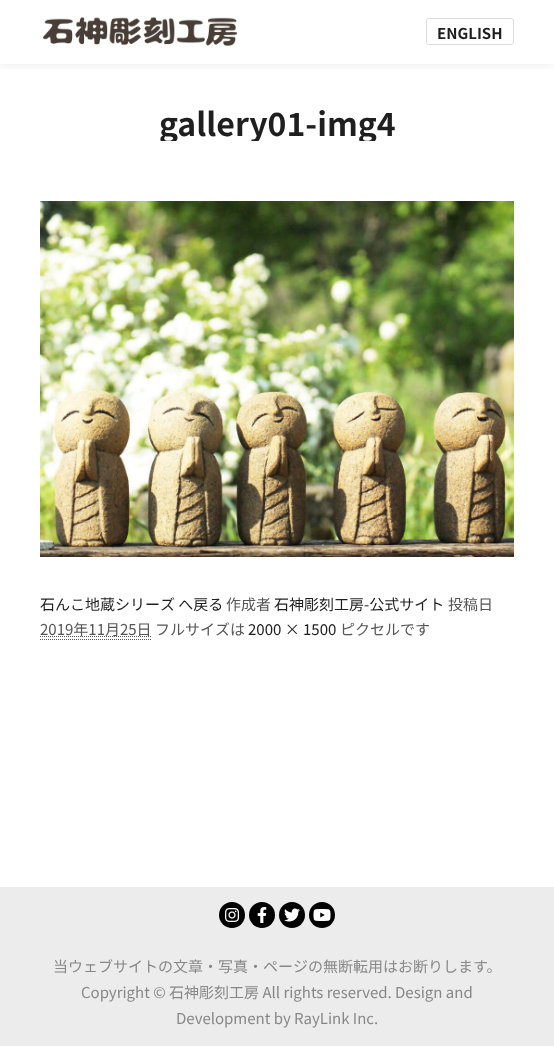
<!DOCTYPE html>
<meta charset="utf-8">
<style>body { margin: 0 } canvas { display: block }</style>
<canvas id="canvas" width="554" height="1046"></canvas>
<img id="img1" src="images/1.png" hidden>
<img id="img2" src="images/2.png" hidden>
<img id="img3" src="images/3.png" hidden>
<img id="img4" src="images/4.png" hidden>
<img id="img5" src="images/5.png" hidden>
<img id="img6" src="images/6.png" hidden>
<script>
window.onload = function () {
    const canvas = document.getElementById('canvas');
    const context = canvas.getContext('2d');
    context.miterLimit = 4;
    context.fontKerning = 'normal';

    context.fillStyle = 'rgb(255, 255, 255)';
    context.fillRect(0, 0, 554, 1046);
    context.save();
    context.beginPath();
    context.rect(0, 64, 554, 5);
    context.clip();
    context.fillStyle = 'rgba(0, 0, 0, 0.09)';
    context.filter = 'blur(6px)';
    context.beginPath();
    context.rect(0, 0, 554, 64);
    context.fill();
    context.filter = 'none';
    context.restore();
    context.drawImage(document.getElementById('img1'), 42, 16, 196, 30);
    context.beginPath();
    context.roundRect(426.5, 18.5, 87, 26, 2.5);
    context.strokeStyle = 'rgb(221, 221, 221)';
    context.stroke();
    context.drawImage(document.getElementById('img2'), 40, 201, 474, 356);
    context.beginPath();
    context.moveTo(40, 639.5);
    context.lineTo(152, 639.5);
    context.strokeStyle = 'rgb(85, 85, 85)';
    context.setLineDash([1, 1]);
    context.stroke();
    context.beginPath();
    context.moveTo(40, 636.5);
    context.lineTo(151.5, 636.5);
    context.stroke();
    context.fillStyle = 'rgb(236, 236, 236)';
    context.fillRect(0, 887, 554, 159);
    context.fillStyle = 'rgb(0, 0, 0)';
    context.beginPath();
    context.arc(232, 915, 13, 0, 2 * Math.PI);
    context.fill();
    context.drawImage(document.getElementById('img3'), 225, 908, 14, 14);
    context.beginPath();
    context.arc(262, 915, 13, 0, 2 * Math.PI);
    context.fill();
    context.drawImage(document.getElementById('img4'), 257, 907, 10, 16);
    context.beginPath();
    context.arc(292, 915, 13, 0, 2 * Math.PI);
    context.fill();
    context.drawImage(document.getElementById('img5'), 284, 908, 16, 14);
    context.beginPath();
    context.arc(322, 915, 13, 0, 2 * Math.PI);
    context.fill();
    context.drawImage(document.getElementById('img6'), 313, 909, 18, 12);
    context.font = 'bold 15px Noto Sans JP';
    context.fillStyle = 'rgb(31, 31, 31)';
    context.fillText('ENGLISH', 437, 39);
    context.save();
    context.beginPath();
    context.rect(40, 103, 474, 38);
    context.clip();
    context.font = 'bold 32px Noto Sans JP';
    context.fillText('gallery01-img4', 159, 136);
    context.restore();
    context.font = '15px Noto Sans JP';
    context.fillText('石んこ地蔵シリーズ へ戻る', 40, 610);
    context.fillStyle = 'rgb(85, 85, 85)';
    context.fillText('作成者', 226, 610);
    context.fillStyle = 'rgb(31, 31, 31)';
    context.fillText('石神彫刻工房-公式サイト', 274, 610);
    context.fillStyle = 'rgb(85, 85, 85)';
    context.fillText('投稿日', 448, 610);
    context.fillText('2019年11月25日 フルサイズは', 40, 635);
    context.fillStyle = 'rgb(31, 31, 31)';
    context.fillText('2000 × 1500', 248, 635);
    context.fillStyle = 'rgb(85, 85, 85)';
    context.fillText('ピクセルです', 340, 635);
    context.fillStyle = 'rgb(136, 136, 136)';
    context.fillText('当ウェブサイトの文章・写真・ページの無断転用はお断りします。', 53, 972);
    context.fillText('Copyright © 石神彫刻工房 All rights reserved. Design and', 81, 998);
    context.fillText('Development by RayLink Inc.', 176, 1024);
};
</script>
